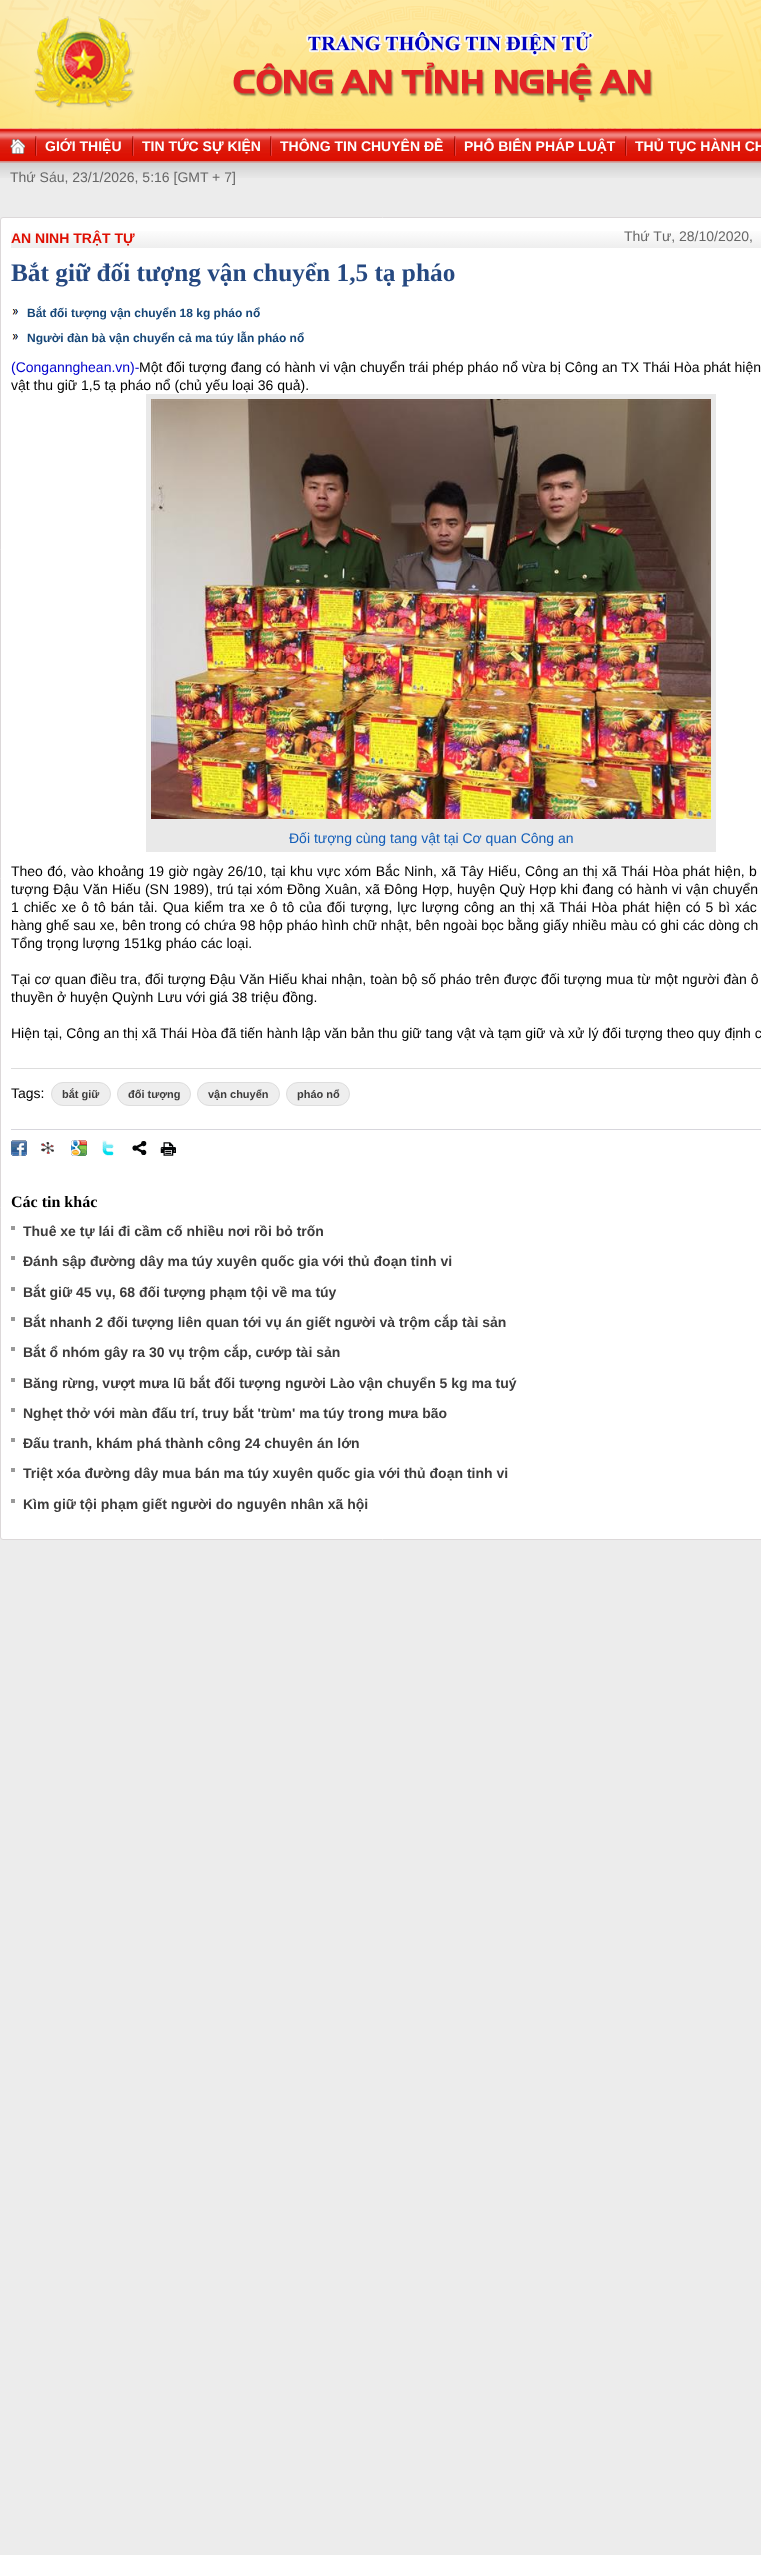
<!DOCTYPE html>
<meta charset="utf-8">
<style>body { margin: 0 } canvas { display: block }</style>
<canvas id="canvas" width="761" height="2555"></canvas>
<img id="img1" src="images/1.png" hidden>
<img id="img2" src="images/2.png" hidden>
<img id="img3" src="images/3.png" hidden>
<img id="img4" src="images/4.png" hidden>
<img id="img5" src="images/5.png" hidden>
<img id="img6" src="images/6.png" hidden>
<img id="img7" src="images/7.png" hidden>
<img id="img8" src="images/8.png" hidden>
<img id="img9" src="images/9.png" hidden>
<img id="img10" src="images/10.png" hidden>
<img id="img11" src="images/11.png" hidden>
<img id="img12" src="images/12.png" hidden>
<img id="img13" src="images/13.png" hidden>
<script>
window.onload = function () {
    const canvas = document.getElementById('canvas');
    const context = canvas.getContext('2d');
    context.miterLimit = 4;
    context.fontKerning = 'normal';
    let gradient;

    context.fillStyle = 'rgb(236, 236, 236)';
    context.fillRect(0, 0, 761, 2555);
    context.drawImage(document.getElementById('img1'), 0, 0, 761, 130);
    context.drawImage(document.getElementById('img2'), 0, 130, 761, 32);
    context.fillStyle = 'rgb(209, 168, 166)';
    context.fillRect(0, 162, 761, 1);
    context.drawImage(document.getElementById('img3'), 10, 139, 15, 15);
    context.drawImage(document.getElementById('img4'), 35, 136, 2, 20);
    context.drawImage(document.getElementById('img4'), 132, 136, 2, 20);
    context.drawImage(document.getElementById('img4'), 270, 136, 2, 20);
    context.drawImage(document.getElementById('img4'), 454, 136, 2, 20);
    context.drawImage(document.getElementById('img4'), 625, 136, 2, 20);
    context.drawImage(document.getElementById('img5'), 0, 163, 761, 15);
    context.fillStyle = 'rgb(255, 255, 255)';
    context.beginPath();
    context.roundRect(0.5, 217.5, 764, 1322, 2.5);
    context.fill();
    context.strokeStyle = 'rgb(220, 216, 217)';
    context.stroke();
    gradient = context.createLinearGradient(431, 228, 431, 248);
    gradient.addColorStop(0, 'rgb(255, 255, 255)');
    gradient.addColorStop(1, 'rgb(238, 238, 238)');
    context.fillStyle = gradient;
    context.fillRect(11, 231, 750, 17);
    context.drawImage(document.getElementById('img6'), 12, 309, 6, 6);
    context.drawImage(document.getElementById('img6'), 12, 334, 6, 6);
    context.fillStyle = 'rgb(233, 233, 233)';
    context.fillRect(146, 394, 570, 458);
    context.drawImage(document.getElementById('img7'), 151, 399, 560, 420);
    context.fillStyle = 'rgb(221, 221, 221)';
    context.fillRect(11, 1068, 750, 1);
    context.fillStyle = 'rgb(238, 238, 238)';
    context.beginPath();
    context.roundRect(51.5, 1082.5, 59, 23, 11.5);
    context.fill();
    context.strokeStyle = 'rgb(221, 221, 221)';
    context.stroke();
    context.beginPath();
    context.roundRect(117.5, 1082.5, 73, 23, 11.5);
    context.fill();
    context.stroke();
    context.beginPath();
    context.roundRect(197.5, 1082.5, 82, 23, 11.5);
    context.fill();
    context.stroke();
    context.beginPath();
    context.roundRect(286.5, 1082.5, 63, 23, 11.5);
    context.fill();
    context.stroke();
    context.fillStyle = 'rgb(215, 214, 220)';
    context.fillRect(11, 1129, 750, 1);
    context.drawImage(document.getElementById('img8'), 11, 1140, 16, 16);
    context.drawImage(document.getElementById('img9'), 41, 1142, 13, 12);
    context.drawImage(document.getElementById('img10'), 71, 1140, 16, 16);
    context.drawImage(document.getElementById('img11'), 102, 1140, 12, 16);
    context.drawImage(document.getElementById('img12'), 132, 1141, 15, 14);
    context.drawImage(document.getElementById('img13'), 160, 1142, 16, 14);
    context.fillStyle = 'rgb(153, 153, 153)';
    context.fillRect(11, 1226, 4, 4);
    context.fillRect(11, 1256, 4, 4);
    context.fillRect(11, 1287, 4, 4);
    context.fillRect(11, 1317, 4, 4);
    context.fillRect(11, 1347, 4, 4);
    context.fillRect(11, 1378, 4, 4);
    context.fillRect(11, 1408, 4, 4);
    context.fillRect(11, 1438, 4, 4);
    context.fillRect(11, 1468, 4, 4);
    context.fillRect(11, 1499, 4, 4);
    context.font = 'bold 14px Liberation Sans';
    context.fillStyle = 'rgb(255, 255, 255)';
    context.fillText('GIỚI THIỆU', 45, 151);
    context.fillText('TIN TỨC SỰ KIỆN', 142, 151);
    context.fillText('THÔNG TIN CHUYÊN ĐỀ', 280, 151);
    context.fillText('PHỔ BIẾN PHÁP LUẬT', 464, 151);
    context.fillText('THỦ TỤC HÀNH CH', 635, 151);
    context.font = '14px Liberation Sans';
    context.fillStyle = 'rgb(102, 102, 102)';
    context.fillText('Thứ Sáu, 23/1/2026, 5:16 [GMT + 7]', 10, 182);
    context.font = 'bold 14px Liberation Sans';
    context.fillStyle = 'rgb(222, 14, 1)';
    context.fillText('AN NINH TRẬT TỰ', 11, 243);
    context.font = '14px Liberation Sans';
    context.fillStyle = 'rgb(102, 102, 102)';
    context.fillText('Thứ Tư, 28/10/2020,', 624, 241);
    context.font = 'bold 25.3px Liberation Serif';
    context.fillStyle = 'rgb(38, 73, 129)';
    context.fillText('Bắt giữ đối tượng vận chuyển 1,5 tạ pháo', 11, 281);
    context.font = 'bold 12px Liberation Sans';
    context.fillStyle = 'rgb(22, 70, 119)';
    context.fillText('Bắt đối tượng vận chuyển 18 kg pháo nổ', 27, 317);
    context.fillText('Người đàn bà vận chuyển cả ma túy lẫn pháo nổ', 27, 342);
    context.font = '14px Liberation Sans';
    context.fillStyle = 'rgb(0, 0, 205)';
    context.fillText('(Congannghean.vn)-', 11, 372);
    context.fillStyle = 'rgb(0, 0, 0)';
    context.fillText('Một đối tượng đang có hành vi vận chuyển trái phép pháo nổ vừa bị Công an TX Thái Hòa phát hiện', 139, 372);
    context.fillText('vật thu giữ 1,5 tạ pháo nổ (chủ yếu loại 36 quả).', 11, 390);
    context.fillStyle = 'rgb(19, 94, 185)';
    context.fillText('Đối tượng cùng tang vật tại Cơ quan Công an', 289, 843);
    context.wordSpacing = '0.5px';
    context.fillStyle = 'rgb(0, 0, 0)';
    context.fillText('Theo đó, vào khoảng 19 giờ ngày 26/10, tại khu vực xóm Bắc Ninh, xã Tây Hiếu, Công an thị xã Thái Hòa phát hiện, b', 11, 876);
    context.wordSpacing = '0.25px';
    context.fillText('tượng Đậu Văn Hiếu (SN 1989), trú tại xóm Đồng Xuân, xã Đông Hợp, huyện Quỳ Hợp khi đang có hành vi vận chuyển', 11, 894);
    context.wordSpacing = '1.1px';
    context.fillText('1 chiếc xe ô tô bán tải. Qua kiểm tra xe ô tô của đối tượng, lực lượng công an thị xã Thái Hòa phát hiện có 5 bì xác', 11, 912);
    context.wordSpacing = '0px';
    context.fillText('hàng ghế sau xe, bên trong có chứa 98 hộp pháo hình chữ nhật, bên ngoài bọc bằng giấy nhiều màu có ghi các dòng ch', 11, 930);
    context.fillText('Tổng trọng lượng 151kg pháo các loại.', 11, 948);
    context.wordSpacing = '0.2px';
    context.fillText('Tại cơ quan điều tra, đối tượng Đậu Văn Hiếu khai nhận, toàn bộ số pháo trên được đối tượng mua từ một người đàn ô', 11, 984);
    context.wordSpacing = '0px';
    context.fillText('thuyền ở huyện Quỳnh Lưu với giá 38 triệu đồng.', 11, 1002);
    context.fillText('Hiện tại, Công an thị xã Thái Hòa đã tiến hành lập văn bản thu giữ tang vật và tạm giữ và xử lý đối tượng theo quy định c', 11, 1038);
    context.fillText('Tags:', 11, 1098);
    context.font = 'bold 11px Liberation Sans';
    context.fillStyle = 'rgb(61, 60, 60)';
    context.fillText('bắt giữ', 62, 1098);
    context.fillText('đối tượng', 128, 1098);
    context.fillText('vận chuyển', 208, 1098);
    context.fillText('pháo nổ', 297, 1098);
    context.font = 'bold 16px Liberation Serif';
    context.fillStyle = 'rgb(0, 0, 0)';
    context.fillText('Các tin khác', 11, 1207);
    context.font = 'bold 14px Liberation Sans';
    context.fillStyle = 'rgb(61, 60, 60)';
    context.fillText('Thuê xe tự lái đi cầm cố nhiều nơi rồi bỏ trốn', 23, 1236);
    context.fillText('Đánh sập đường dây ma túy xuyên quốc gia với thủ đoạn tinh vi', 23, 1266);
    context.fillText('Bắt giữ 45 vụ, 68 đối tượng phạm tội về ma túy', 23, 1297);
    context.fillText('Bắt nhanh 2 đối tượng liên quan tới vụ án giết người và trộm cắp tài sản', 23, 1327);
    context.fillText('Bắt ổ nhóm gây ra 30 vụ trộm cắp, cướp tài sản', 23, 1357);
    context.fillText('Băng rừng, vượt mưa lũ bắt đối tượng người Lào vận chuyển 5 kg ma tuý', 23, 1388);
    context.fillText('Nghẹt thở với màn đấu trí, truy bắt \'trùm\' ma túy trong mưa bão', 23, 1418);
    context.fillText('Đấu tranh, khám phá thành công 24 chuyên án lớn', 23, 1448);
    context.fillText('Triệt xóa đường dây mua bán ma túy xuyên quốc gia với thủ đoạn tinh vi', 23, 1478);
    context.fillText('Kìm giữ tội phạm giết người do nguyên nhân xã hội', 23, 1509);
};
</script>
